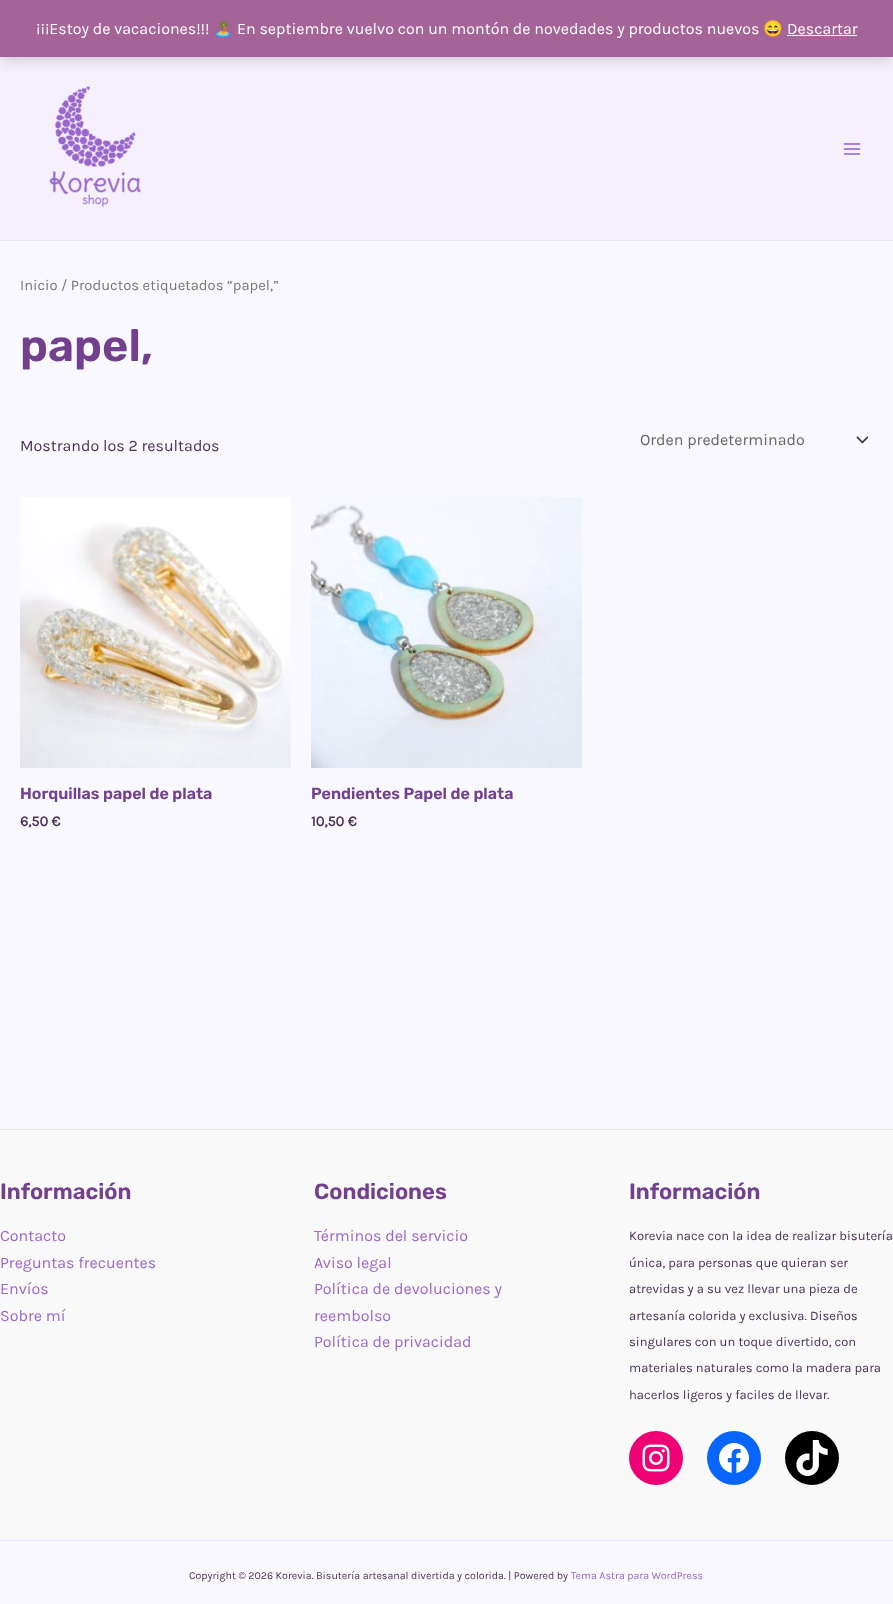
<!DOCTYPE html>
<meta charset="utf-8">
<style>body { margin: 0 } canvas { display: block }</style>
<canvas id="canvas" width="893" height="1604"></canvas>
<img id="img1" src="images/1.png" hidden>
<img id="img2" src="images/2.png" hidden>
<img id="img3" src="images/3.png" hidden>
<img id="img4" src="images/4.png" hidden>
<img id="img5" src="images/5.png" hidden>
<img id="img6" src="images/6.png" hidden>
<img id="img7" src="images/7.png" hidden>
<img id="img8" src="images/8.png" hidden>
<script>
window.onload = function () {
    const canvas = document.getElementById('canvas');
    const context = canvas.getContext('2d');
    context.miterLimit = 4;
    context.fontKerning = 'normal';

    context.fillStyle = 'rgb(249, 248, 255)';
    context.fillRect(0, 0, 893, 1604);
    context.fillStyle = 'rgb(245, 240, 252)';
    context.fillRect(0, 57, 893, 183);
    context.fillStyle = 'rgba(0, 0, 0, 0.2)';
    context.filter = 'blur(8px)';
    context.beginPath();
    context.rect(0, 1, 893, 57);
    context.fill();
    context.filter = 'none';
    context.fillStyle = 'rgb(164, 100, 151)';
    context.fillRect(0, 0, 893, 57);
    context.fillStyle = 'rgb(255, 255, 255)';
    context.fillRect(787, 35, 70, 1);
    context.fillStyle = 'rgb(234, 234, 234)';
    context.fillRect(0, 240, 893, 1);
    context.drawImage(document.getElementById('img1'), 49, 86, 92, 122);
    context.drawImage(document.getElementById('img2'), 843, 143, 18, 12);
    context.drawImage(document.getElementById('img3'), 856, 436, 12, 8);
    context.drawImage(document.getElementById('img4'), 20, 497, 271, 271);
    context.drawImage(document.getElementById('img5'), 311, 497, 271, 271);
    context.fillStyle = 'rgb(249, 249, 249)';
    context.fillRect(0, 1130, 893, 410);
    context.fillStyle = 'rgb(230, 230, 230)';
    context.fillRect(0, 1129, 893, 1);
    context.fillStyle = 'rgb(240, 0, 117)';
    context.beginPath();
    context.arc(656, 1458, 27, 0, 2 * Math.PI);
    context.fill();
    context.drawImage(document.getElementById('img6'), 642, 1444, 28, 28);
    context.fillStyle = 'rgb(8, 102, 255)';
    context.beginPath();
    context.arc(734, 1458, 27, 0, 2 * Math.PI);
    context.fill();
    context.drawImage(document.getElementById('img7'), 719, 1443, 30, 30);
    context.fillStyle = 'rgb(0, 0, 0)';
    context.beginPath();
    context.arc(812, 1458, 27, 0, 2 * Math.PI);
    context.fill();
    context.drawImage(document.getElementById('img8'), 796, 1440, 32, 36);
    context.fillStyle = 'rgb(240, 227, 255)';
    context.fillRect(0, 1540, 893, 1);
    context.font = '16px Karla';
    context.fillStyle = 'rgb(255, 255, 255)';
    context.fillText('¡¡¡Estoy de vacaciones!!!', 36, 34);
    context.font = '16px Noto Color Emoji';
    context.fillText('🏝️', 213, 34);
    context.font = '16px Karla';
    context.fillText('En septiembre vuelvo con un montón de novedades y productos nuevos', 237, 34);
    context.font = '16px Noto Color Emoji';
    context.fillText('😄', 763, 34);
    context.font = '16px Karla';
    context.fillText('Descartar', 787, 34);
    context.font = '14.75px Karla';
    context.fillStyle = 'rgb(119, 119, 119)';
    context.fillText('Inicio / Productos etiquetados “papel,”', 20, 290);
    context.font = '600 45px Rubik';
    context.fillStyle = 'rgb(114, 64, 141)';
    context.fillText('papel,', 20, 361);
    context.font = '16px Karla';
    context.fillStyle = 'rgb(72, 50, 84)';
    context.fillText('Mostrando los 2 resultados', 20, 451);
    context.fillStyle = 'rgb(102, 102, 102)';
    context.fillText('Orden predeterminado', 640, 445);
    context.font = '600 16px Rubik';
    context.fillStyle = 'rgb(114, 64, 141)';
    context.fillText('Horquillas papel de plata', 20, 799);
    context.font = 'bold 14.5px Karla';
    context.fillStyle = 'rgb(72, 50, 84)';
    context.fillText('6,50 €', 20, 826);
    context.font = '600 16px Rubik';
    context.fillStyle = 'rgb(114, 64, 141)';
    context.fillText('Pendientes Papel de plata', 311, 799);
    context.font = 'bold 14.5px Karla';
    context.fillStyle = 'rgb(72, 50, 84)';
    context.fillText('10,50 €', 311, 826);
    context.font = '600 22px Rubik';
    context.fillStyle = 'rgb(114, 64, 141)';
    context.fillText('Información', 0, 1199);
    context.font = '16px Karla';
    context.fillStyle = 'rgb(153, 102, 204)';
    context.fillText('Contacto', 0, 1241);
    context.fillText('Preguntas frecuentes', 0, 1268);
    context.fillText('Envíos', 0, 1294);
    context.fillText('Sobre mí', 0, 1321);
    context.font = '600 22px Rubik';
    context.fillStyle = 'rgb(114, 64, 141)';
    context.fillText('Condiciones', 314, 1199);
    context.font = '16px Karla';
    context.fillStyle = 'rgb(153, 102, 204)';
    context.fillText('Términos del servicio', 314, 1241);
    context.fillText('Aviso legal', 314, 1268);
    context.fillText('Política de devoluciones y', 314, 1294);
    context.fillText('reembolso', 314, 1321);
    context.fillText('Política de privacidad', 314, 1347);
    context.font = '600 22px Rubik';
    context.fillStyle = 'rgb(114, 64, 141)';
    context.fillText('Información', 629, 1199);
    context.font = '13px Karla';
    context.fillStyle = 'rgb(72, 50, 84)';
    context.fillText('Korevia nace con la idea de realizar bisutería', 629, 1240);
    context.fillText('única, para personas que quieran ser', 629, 1267);
    context.fillText('atrevidas y a su vez llevar una pieza de', 629, 1293);
    context.fillText('artesanía colorida y exclusiva. Diseños', 629, 1320);
    context.fillText('singulares con un toque divertido, con', 629, 1346);
    context.fillText('materiales naturales como la madera para', 629, 1372);
    context.fillText('hacerlos ligeros y faciles de llevar.', 629, 1399);
    context.font = '10.65px Karla';
    context.fillText('Copyright © 2026 Korevia. Bisutería artesanal divertida y colorida. | Powered by', 189, 1579);
    context.fillStyle = 'rgb(153, 102, 204)';
    context.fillText('Tema Astra para WordPress', 571, 1579);
};
</script>
